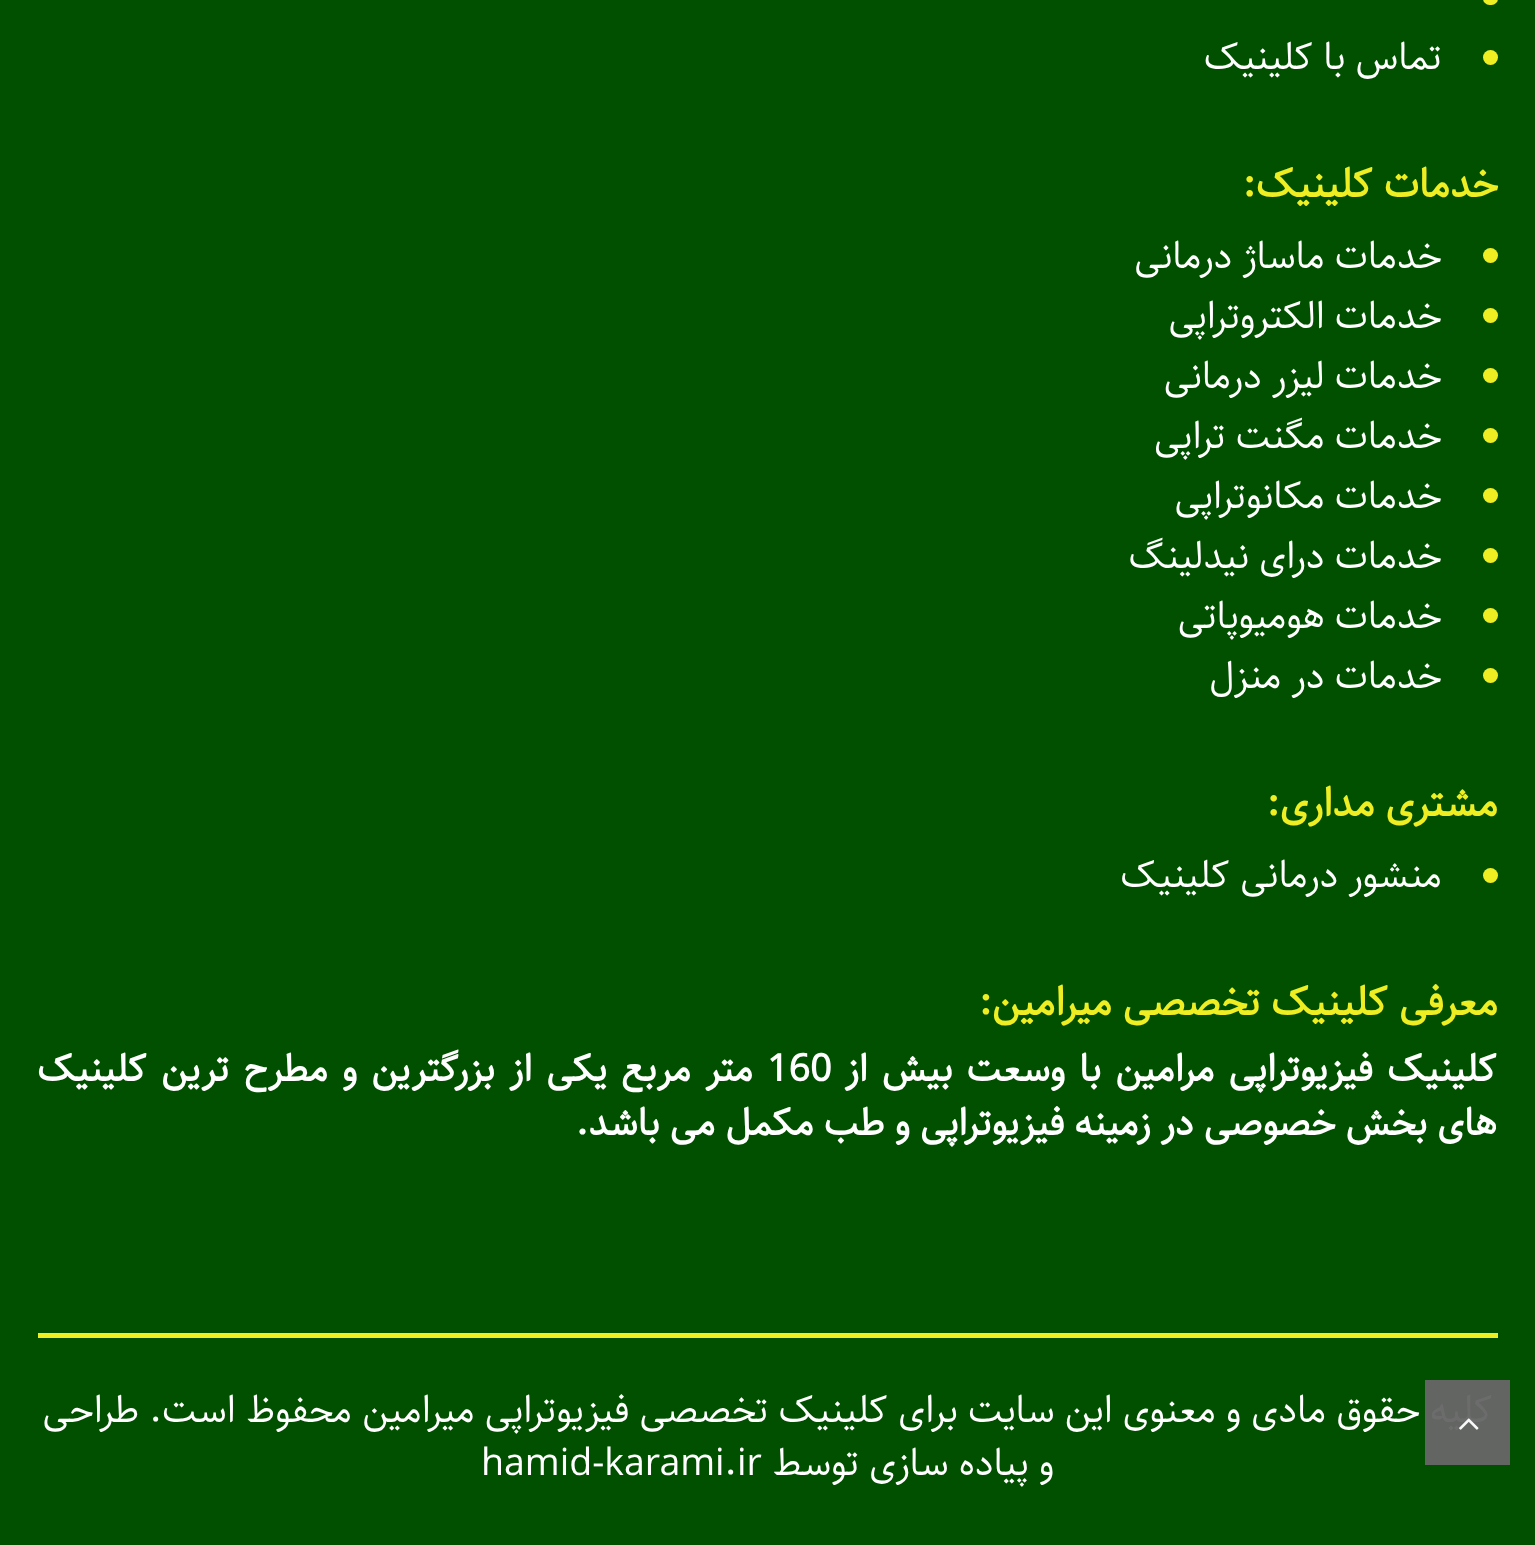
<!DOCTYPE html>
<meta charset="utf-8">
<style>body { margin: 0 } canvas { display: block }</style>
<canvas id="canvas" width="1535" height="1545"></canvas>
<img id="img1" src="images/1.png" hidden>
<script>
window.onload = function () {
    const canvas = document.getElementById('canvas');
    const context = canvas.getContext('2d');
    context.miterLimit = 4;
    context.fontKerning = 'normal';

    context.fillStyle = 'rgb(0, 80, 0)';
    context.fillRect(0, 0, 1535, 1545);
    context.fillStyle = 'rgb(238, 238, 34)';
    context.beginPath();
    context.roundRect(1483, -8, 15, 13, 7.5);
    context.fill();
    context.beginPath();
    context.arc(1490.5, 57.5, 7.5, 0, 2 * Math.PI);
    context.fill();
    context.beginPath();
    context.arc(1490.5, 255.5, 7.5, 0, 2 * Math.PI);
    context.fill();
    context.beginPath();
    context.arc(1490.5, 315.5, 7.5, 0, 2 * Math.PI);
    context.fill();
    context.beginPath();
    context.arc(1490.5, 375.5, 7.5, 0, 2 * Math.PI);
    context.fill();
    context.beginPath();
    context.arc(1490.5, 435.5, 7.5, 0, 2 * Math.PI);
    context.fill();
    context.beginPath();
    context.arc(1490.5, 495.5, 7.5, 0, 2 * Math.PI);
    context.fill();
    context.beginPath();
    context.arc(1490.5, 555.5, 7.5, 0, 2 * Math.PI);
    context.fill();
    context.beginPath();
    context.arc(1490.5, 615.5, 7.5, 0, 2 * Math.PI);
    context.fill();
    context.beginPath();
    context.arc(1490.5, 675.5, 7.5, 0, 2 * Math.PI);
    context.fill();
    context.beginPath();
    context.arc(1490.5, 875.5, 7.5, 0, 2 * Math.PI);
    context.fill();
    context.fillRect(38, 1333, 1460, 5);
    context.direction = 'rtl';
    context.font = '37.5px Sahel';
    context.fillStyle = 'rgb(255, 255, 255)';
    context.fillText('تماس با کلینیک', 1442, 69);
    context.font = 'bold 40px Sahel';
    context.fillStyle = 'rgb(238, 238, 34)';
    context.fillText('خدمات کلینیک:', 1498, 197);
    context.font = '37.5px Sahel';
    context.fillStyle = 'rgb(255, 255, 255)';
    context.fillText('خدمات ماساژ درمانی', 1442, 268);
    context.fillText('خدمات الکتروتراپی', 1442, 328);
    context.fillText('خدمات لیزر درمانی', 1442, 388);
    context.fillText('خدمات مگنت تراپی', 1442, 448);
    context.fillText('خدمات مکانوتراپی', 1442, 508);
    context.fillText('خدمات درای نیدلینگ', 1442, 568);
    context.fillText('خدمات هومیوپاتی', 1442, 628);
    context.fillText('خدمات در منزل', 1442, 688);
    context.font = 'bold 40px Sahel';
    context.fillStyle = 'rgb(238, 238, 34)';
    context.fillText('مشتری مداری:', 1498, 816);
    context.font = '37.5px Sahel';
    context.fillStyle = 'rgb(255, 255, 255)';
    context.fillText('منشور درمانی کلینیک', 1442, 887);
    context.font = 'bold 40px Sahel';
    context.fillStyle = 'rgb(238, 238, 34)';
    context.fillText('معرفی کلینیک تخصصی میرامین:', 1498, 1015);
    context.wordSpacing = '4px';
    context.font = 'bold 37.5px Sahel';
    context.fillStyle = 'rgb(255, 255, 255)';
    context.fillText('کلینیک فیزیوتراپی مرامین با وسعت بیش از', 1497, 1081);
    context.wordSpacing = '0px';
    context.direction = 'ltr';
    context.fillText('160', 767, 1081);
    context.wordSpacing = '4px';
    context.direction = 'rtl';
    context.fillText('متر مربع یکی از بزرگترین و مطرح ترین کلینیک', 753, 1081);
    context.wordSpacing = '0px';
    context.fillText('های بخش خصوصی در زمینه فیزیوتراپی و طب مکمل می باشد.', 1497, 1135);
    context.font = '37.5px Sahel';
    context.fillText('کلیه حقوق مادی و معنوی این سایت برای کلینیک تخصصی فیزیوتراپی میرامین محفوظ است. طراحی', 1493, 1422);
    context.fillText('و پیاده سازی توسط', 1054, 1475);
    context.direction = 'ltr';
    context.fillText('hamid-karami.ir', 481, 1475);
    context.fillStyle = 'rgba(102, 102, 102, 0.96)';
    context.fillRect(1425, 1380, 85, 85);
    context.drawImage(document.getElementById('img1'), 1459, 1418, 20, 12);
};
</script>
